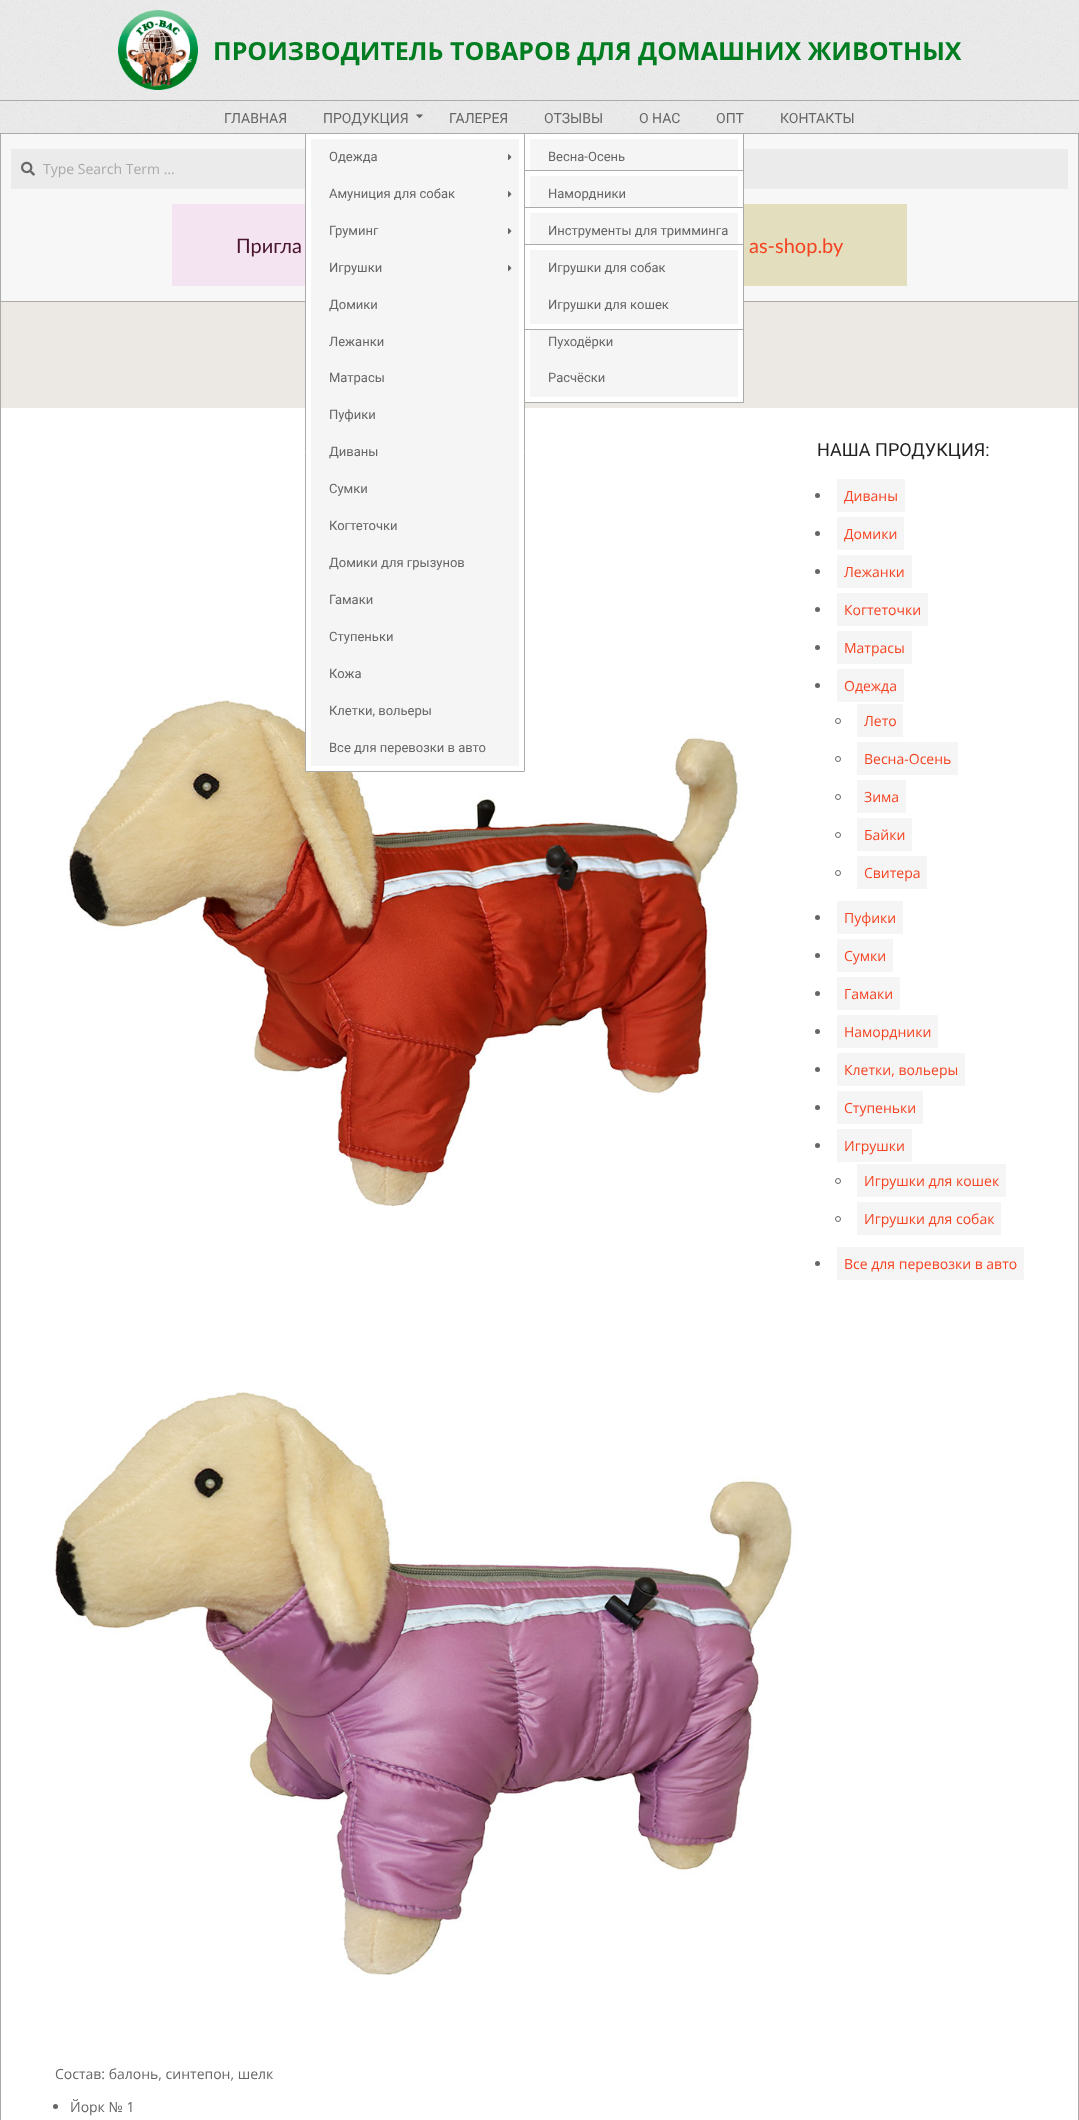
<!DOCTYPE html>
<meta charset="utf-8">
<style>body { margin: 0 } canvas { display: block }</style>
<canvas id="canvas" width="1079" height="2120"></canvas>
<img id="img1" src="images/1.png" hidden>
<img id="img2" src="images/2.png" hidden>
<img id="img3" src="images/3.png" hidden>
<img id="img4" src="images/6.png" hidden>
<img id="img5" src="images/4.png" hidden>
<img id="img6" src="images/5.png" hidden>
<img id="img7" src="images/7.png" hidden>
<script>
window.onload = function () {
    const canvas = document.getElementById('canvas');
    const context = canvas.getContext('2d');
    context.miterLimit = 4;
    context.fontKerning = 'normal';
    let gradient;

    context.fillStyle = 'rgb(232, 232, 232)';
    context.fillRect(0, 0, 1079, 2120);
    context.drawImage(document.getElementById('img1'), 1, 0, 1077, 133);
    context.fillStyle = 'rgb(170, 170, 170)';
    context.fillRect(0, 100, 1079, 1);
    context.drawImage(document.getElementById('img2'), 118, 10, 80, 80);
    context.fillRect(0, 133, 1079, 1);
    context.drawImage(document.getElementById('img3'), 416, 114, 7, 4);
    context.fillStyle = 'rgb(247, 247, 247)';
    context.fillRect(1, 134, 1077, 167);
    context.fillStyle = 'rgb(170, 170, 170)';
    context.fillRect(1078, 134, 1, 1986);
    context.fillRect(0, 301, 1079, 1);
    context.fillStyle = 'rgb(235, 235, 235)';
    context.fillRect(11, 149, 1057, 40);
    gradient = context.createLinearGradient(335, 41, 744, 449);
    gradient.addColorStop(0.5, 'rgb(244, 227, 240)');
    gradient.addColorStop(0.5, 'rgb(226, 222, 190)');
    context.fillStyle = gradient;
    context.fillRect(172, 204, 735, 82);
    context.fillStyle = 'rgb(255, 255, 255)';
    context.fillRect(1, 408, 1077, 1712);
    context.fillStyle = 'rgb(236, 233, 229)';
    context.fillRect(1, 302, 1077, 106);
    context.drawImage(document.getElementById('img4'), 67, 697, 674, 510);
    context.fillStyle = 'rgb(255, 255, 255)';
    context.beginPath();
    context.rect(305.5, 133.5, 219, 638);
    context.fill();
    context.strokeStyle = 'rgb(170, 170, 170)';
    context.stroke();
    context.fillStyle = 'rgb(245, 245, 245)';
    context.fillRect(311, 139, 208, 627);
    context.drawImage(document.getElementById('img5'), 508, 154, 4, 6);
    context.fillStyle = 'rgb(255, 255, 255)';
    context.fillRect(525, 134, 218, 36);
    context.strokeRect(524.5, 133.5, 219, 196);
    context.fillStyle = 'rgb(245, 245, 245)';
    context.fillRect(530, 139, 208, 31);
    context.drawImage(document.getElementById('img5'), 508, 191, 4, 6);
    context.fillStyle = 'rgb(255, 255, 255)';
    context.fillRect(525, 171, 218, 36);
    context.strokeRect(524.5, 170.5, 219, 159);
    context.fillStyle = 'rgb(245, 245, 245)';
    context.fillRect(530, 176, 208, 31);
    context.drawImage(document.getElementById('img5'), 508, 228, 4, 6);
    context.fillStyle = 'rgb(255, 255, 255)';
    context.beginPath();
    context.rect(524.5, 207.5, 219, 195);
    context.fill();
    context.stroke();
    context.fillStyle = 'rgb(245, 245, 245)';
    context.fillRect(530, 213, 208, 31);
    context.fillRect(530, 330, 208, 67);
    context.drawImage(document.getElementById('img5'), 508, 265, 4, 6);
    context.strokeRect(524.5, 244.5, 219, 85);
    context.fillRect(530, 250, 208, 74);
    context.fillStyle = 'rgb(170, 170, 170)';
    context.fillRect(0, 134, 1, 1986);
    context.drawImage(document.getElementById('img6'), 21, 161, 14, 15);
    context.fillStyle = 'rgb(102, 102, 102)';
    context.beginPath();
    context.arc(817.5, 495.5, 2.5, 0, 2 * Math.PI);
    context.fill();
    context.fillStyle = 'rgb(245, 245, 245)';
    context.fillRect(837, 479, 68, 33);
    context.fillStyle = 'rgb(102, 102, 102)';
    context.beginPath();
    context.arc(817.5, 533.5, 2.5, 0, 2 * Math.PI);
    context.fill();
    context.fillStyle = 'rgb(245, 245, 245)';
    context.fillRect(837, 517, 67, 33);
    context.fillStyle = 'rgb(102, 102, 102)';
    context.beginPath();
    context.arc(817.5, 571.5, 2.5, 0, 2 * Math.PI);
    context.fill();
    context.fillStyle = 'rgb(245, 245, 245)';
    context.fillRect(837, 555, 75, 33);
    context.fillStyle = 'rgb(102, 102, 102)';
    context.beginPath();
    context.arc(817.5, 609.5, 2.5, 0, 2 * Math.PI);
    context.fill();
    context.fillStyle = 'rgb(245, 245, 245)';
    context.fillRect(837, 593, 91, 33);
    context.fillStyle = 'rgb(102, 102, 102)';
    context.beginPath();
    context.arc(817.5, 647.5, 2.5, 0, 2 * Math.PI);
    context.fill();
    context.fillStyle = 'rgb(245, 245, 245)';
    context.fillRect(837, 631, 75, 33);
    context.fillStyle = 'rgb(102, 102, 102)';
    context.beginPath();
    context.arc(817.5, 685.5, 2.5, 0, 2 * Math.PI);
    context.fill();
    context.fillStyle = 'rgb(245, 245, 245)';
    context.fillRect(837, 669, 67, 33);
    context.beginPath();
    context.arc(838, 721, 2.5, 0, 2 * Math.PI);
    context.strokeStyle = 'rgb(102, 102, 102)';
    context.stroke();
    context.fillRect(857, 704, 46, 33);
    context.beginPath();
    context.arc(838, 759, 2.5, 0, 2 * Math.PI);
    context.stroke();
    context.fillRect(857, 742, 101, 33);
    context.beginPath();
    context.arc(838, 797, 2.5, 0, 2 * Math.PI);
    context.stroke();
    context.fillRect(857, 780, 49, 33);
    context.beginPath();
    context.arc(838, 835, 2.5, 0, 2 * Math.PI);
    context.stroke();
    context.fillRect(857, 818, 55, 33);
    context.beginPath();
    context.arc(838, 873, 2.5, 0, 2 * Math.PI);
    context.stroke();
    context.fillRect(857, 856, 70, 33);
    context.fillStyle = 'rgb(102, 102, 102)';
    context.beginPath();
    context.arc(817.5, 917.5, 2.5, 0, 2 * Math.PI);
    context.fill();
    context.fillStyle = 'rgb(245, 245, 245)';
    context.fillRect(837, 901, 66, 33);
    context.fillStyle = 'rgb(102, 102, 102)';
    context.beginPath();
    context.arc(817.5, 955.5, 2.5, 0, 2 * Math.PI);
    context.fill();
    context.fillStyle = 'rgb(245, 245, 245)';
    context.fillRect(837, 939, 56, 33);
    context.fillStyle = 'rgb(102, 102, 102)';
    context.beginPath();
    context.arc(817.5, 993.5, 2.5, 0, 2 * Math.PI);
    context.fill();
    context.fillStyle = 'rgb(245, 245, 245)';
    context.fillRect(837, 977, 63, 33);
    context.fillStyle = 'rgb(102, 102, 102)';
    context.beginPath();
    context.arc(817.5, 1031.5, 2.5, 0, 2 * Math.PI);
    context.fill();
    context.fillStyle = 'rgb(245, 245, 245)';
    context.fillRect(837, 1015, 101, 33);
    context.fillStyle = 'rgb(102, 102, 102)';
    context.beginPath();
    context.arc(817.5, 1069.5, 2.5, 0, 2 * Math.PI);
    context.fill();
    context.fillStyle = 'rgb(245, 245, 245)';
    context.fillRect(837, 1053, 128, 33);
    context.fillStyle = 'rgb(102, 102, 102)';
    context.beginPath();
    context.arc(817.5, 1107.5, 2.5, 0, 2 * Math.PI);
    context.fill();
    context.fillStyle = 'rgb(245, 245, 245)';
    context.fillRect(837, 1091, 86, 33);
    context.fillStyle = 'rgb(102, 102, 102)';
    context.beginPath();
    context.arc(817.5, 1145.5, 2.5, 0, 2 * Math.PI);
    context.fill();
    context.fillStyle = 'rgb(245, 245, 245)';
    context.fillRect(837, 1129, 75, 33);
    context.beginPath();
    context.arc(838, 1181, 2.5, 0, 2 * Math.PI);
    context.stroke();
    context.fillRect(857, 1164, 149, 33);
    context.beginPath();
    context.arc(838, 1219, 2.5, 0, 2 * Math.PI);
    context.stroke();
    context.fillRect(857, 1202, 144, 33);
    context.fillStyle = 'rgb(102, 102, 102)';
    context.beginPath();
    context.arc(817.5, 1263.5, 2.5, 0, 2 * Math.PI);
    context.fill();
    context.fillStyle = 'rgb(245, 245, 245)';
    context.fillRect(837, 1247, 187, 33);
    context.drawImage(document.getElementById('img7'), 55, 1392, 741, 585);
    context.fillStyle = 'rgb(102, 102, 102)';
    context.beginPath();
    context.arc(55.5, 2106.5, 2.5, 0, 2 * Math.PI);
    context.fill();
    context.font = 'bold 25px Open Sans';
    context.fillStyle = 'rgb(0, 125, 33)';
    context.fillText('ПРОИЗВОДИТЕЛЬ ТОВАРОВ ДЛЯ ДОМАШНИХ ЖИВОТНЫХ', 213, 60);
    context.font = '14px Roboto';
    context.fillStyle = 'rgb(102, 102, 102)';
    context.fillText('ПРОДУКЦИЯ', 323, 123);
    context.font = '13px Roboto';
    context.fillText('Одежда', 329, 161);
    context.fillText('Весна-Осень', 548, 161);
    context.fillText('Амуниция для собак', 329, 198);
    context.fillText('Намордники', 548, 198);
    context.fillText('Груминг', 329, 235);
    context.fillText('Инструменты для тримминга', 548, 235);
    context.fillText('Пуходёрки', 548, 346);
    context.fillText('Расчёски', 548, 382);
    context.fillText('Игрушки', 329, 272);
    context.fillText('Игрушки для собак', 548, 272);
    context.fillText('Игрушки для кошек', 548, 309);
    context.fillText('Домики', 329, 309);
    context.fillText('Лежанки', 329, 346);
    context.fillText('Матрасы', 329, 382);
    context.fillText('Пуфики', 329, 419);
    context.fillText('Диваны', 329, 456);
    context.fillText('Сумки', 329, 493);
    context.fillText('Когтеточки', 329, 530);
    context.fillText('Домики для грызунов', 329, 567);
    context.fillText('Гамаки', 329, 604);
    context.fillText('Ступеньки', 329, 641);
    context.fillText('Кожа', 329, 678);
    context.fillText('Клетки, вольеры', 329, 715);
    context.fillText('Все для перевозки в авто', 329, 752);
    context.font = '14px Roboto';
    context.fillText('ГЛАВНАЯ', 224, 123);
    context.fillText('ГАЛЕРЕЯ', 449, 123);
    context.fillText('ОТЗЫВЫ', 544, 123);
    context.fillText('О НАС', 639, 123);
    context.fillText('ОПТ', 716, 123);
    context.fillText('КОНТАКТЫ', 780, 123);
    context.font = '14px Open Sans';
    context.fillStyle = 'rgb(169, 169, 169)';
    context.fillText('Type Search Term …', 43, 174);
    context.font = '20px Lato';
    context.fillStyle = 'rgb(73, 21, 44)';
    context.fillText('Пригла', 236, 253);
    context.fillStyle = 'rgb(245, 68, 35)';
    context.fillText('as-shop.by', 749, 253);
    context.font = '18px Roboto';
    context.fillStyle = 'rgb(34, 34, 34)';
    context.fillText('НАША ПРОДУКЦИЯ:', 817, 456);
    context.font = '14px Open Sans';
    context.fillStyle = 'rgb(245, 68, 35)';
    context.fillText('Диваны', 844, 501);
    context.fillText('Домики', 844, 539);
    context.fillText('Лежанки', 844, 577);
    context.fillText('Когтеточки', 844, 615);
    context.fillText('Матрасы', 844, 653);
    context.fillText('Одежда', 844, 691);
    context.fillText('Лето', 864, 726);
    context.fillText('Весна-Осень', 864, 764);
    context.fillText('Зима', 864, 802);
    context.fillText('Байки', 864, 840);
    context.fillText('Свитера', 864, 878);
    context.fillText('Пуфики', 844, 923);
    context.fillText('Сумки', 844, 961);
    context.fillText('Гамаки', 844, 999);
    context.fillText('Намордники', 844, 1037);
    context.fillText('Клетки, вольеры', 844, 1075);
    context.fillText('Ступеньки', 844, 1113);
    context.fillText('Игрушки', 844, 1151);
    context.fillText('Игрушки для кошек', 864, 1186);
    context.fillText('Игрушки для собак', 864, 1224);
    context.fillText('Все для перевозки в авто', 844, 1269);
    context.fillStyle = 'rgb(102, 102, 102)';
    context.fillText('Состав: балонь, синтепон, шелк', 55, 2079);
    context.fillText('Йорк № 1', 70, 2112);
};
</script>
